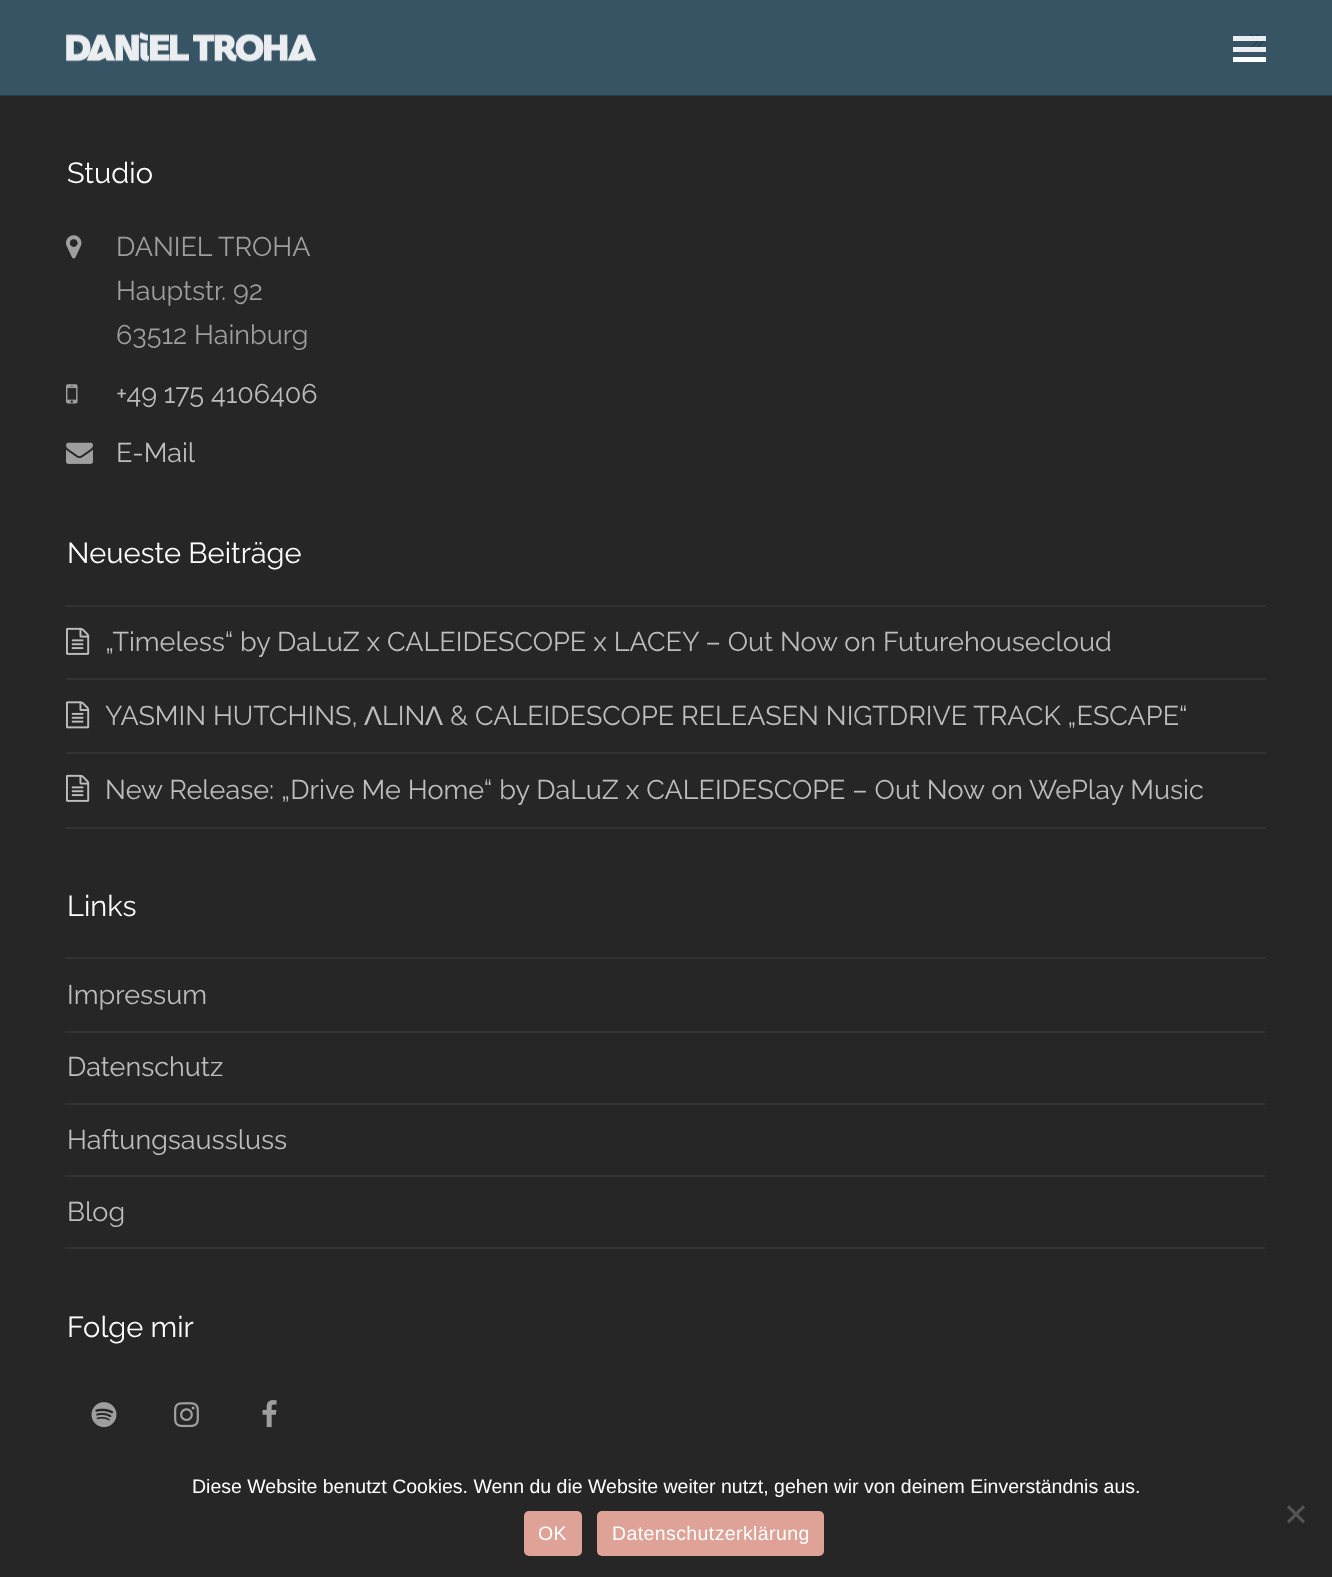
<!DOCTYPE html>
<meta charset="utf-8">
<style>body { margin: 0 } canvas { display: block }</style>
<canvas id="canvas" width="1332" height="1577"></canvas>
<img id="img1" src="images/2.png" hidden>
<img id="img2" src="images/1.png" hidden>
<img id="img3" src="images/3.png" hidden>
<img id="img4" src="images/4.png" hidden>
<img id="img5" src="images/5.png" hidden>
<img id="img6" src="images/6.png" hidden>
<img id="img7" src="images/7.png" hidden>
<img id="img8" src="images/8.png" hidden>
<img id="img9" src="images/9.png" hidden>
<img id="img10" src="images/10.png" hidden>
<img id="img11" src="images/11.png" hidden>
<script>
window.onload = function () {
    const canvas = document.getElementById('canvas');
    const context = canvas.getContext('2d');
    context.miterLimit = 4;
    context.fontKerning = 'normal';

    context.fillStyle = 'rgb(55, 84, 100)';
    context.fillRect(0, 0, 1332, 1577);
    context.drawImage(document.getElementById('img1'), 66, 35, 15, 16);
    context.drawImage(document.getElementById('img2'), 66, 31, 251, 31);
    context.drawImage(document.getElementById('img3'), 1250, 33, 15, 16);
    context.fillStyle = 'rgba(255, 255, 255, 0.9)';
    context.fillRect(1233, 47, 33, 5);
    context.fillRect(1233, 36, 33, 5);
    context.fillStyle = 'rgb(255, 255, 255)';
    context.fillRect(1233, 57, 33, 5);
    context.fillStyle = 'rgb(38, 38, 38)';
    context.fillRect(0, 96, 1332, 1481);
    context.fillStyle = 'rgb(34, 62, 79)';
    context.fillRect(0, 95, 1332, 1);
    context.drawImage(document.getElementById('img4'), 66, 235, 16, 24);
    context.drawImage(document.getElementById('img5'), 66, 384, 12, 20);
    context.drawImage(document.getElementById('img6'), 66, 442, 27, 22);
    context.fillStyle = 'rgb(51, 51, 51)';
    context.fillRect(66, 605, 1200, 2);
    context.fillRect(66, 678, 1200, 2);
    context.drawImage(document.getElementById('img7'), 66, 627, 24, 28);
    context.fillRect(66, 752, 1200, 2);
    context.drawImage(document.getElementById('img8'), 66, 701, 24, 28);
    context.fillRect(66, 827, 1200, 2);
    context.drawImage(document.getElementById('img7'), 66, 774, 24, 28);
    context.fillRect(66, 957, 1200, 2);
    context.fillRect(66, 1031, 1200, 2);
    context.fillRect(66, 1103, 1200, 2);
    context.fillRect(66, 1175, 1200, 2);
    context.fillRect(66, 1247, 1200, 2);
    context.drawImage(document.getElementById('img9'), 91, 1402, 26, 26);
    context.drawImage(document.getElementById('img10'), 174, 1402, 25, 26);
    context.drawImage(document.getElementById('img11'), 262, 1400, 15, 28);
    context.fillStyle = 'rgb(83, 83, 83)';
    context.beginPath();
    context.moveTo(1303, 1505);
    context.lineTo(1305, 1507.5);
    context.lineTo(1289, 1523.5);
    context.lineTo(1287, 1521);
    context.closePath();
    context.fill();
    context.beginPath();
    context.moveTo(1287, 1507.5);
    context.lineTo(1289, 1505);
    context.lineTo(1305, 1521);
    context.lineTo(1303, 1523.5);
    context.closePath();
    context.fill();
    context.fillStyle = 'rgb(222, 162, 151)';
    context.beginPath();
    context.roundRect(524, 1511, 58, 45, 5);
    context.fill();
    context.beginPath();
    context.roundRect(597, 1511, 227, 45, 5);
    context.fill();
    context.font = '29px Raleway';
    context.fillStyle = 'rgb(255, 255, 255)';
    context.fillText('Studio', 67, 183);
    context.font = '27px Raleway';
    context.fillStyle = 'rgb(158, 158, 158)';
    context.fillText('DANIEL TROHA', 116, 256);
    context.fillText('Hauptstr. 92', 116, 300);
    context.fillText('63512 Hainburg', 116, 344);
    context.fillStyle = 'rgb(189, 189, 189)';
    context.fillText('+49 175 4106406', 116, 403);
    context.fillText('E-Mail', 116, 462);
    context.font = '29px Raleway';
    context.fillStyle = 'rgb(255, 255, 255)';
    context.fillText('Neueste Beiträge', 67, 563);
    context.font = '27px Raleway';
    context.fillStyle = 'rgb(189, 189, 189)';
    context.fillText('„Timeless“ by DaLuZ x CALEIDESCOPE x LACEY – Out Now on Futurehousecloud', 105, 651);
    context.fillText('YASMIN HUTCHINS,', 105, 725);
    context.font = '27px Liberation Sans';
    context.fillText('Λ', 364, 725);
    context.font = '27px Raleway';
    context.fillText('LIN', 382, 725);
    context.font = '27px Liberation Sans';
    context.fillText('Λ', 425, 725);
    context.font = '27px Raleway';
    context.fillText('& CALEIDESCOPE RELEASEN NIGTDRIVE TRACK „ESCAPE“', 450, 725);
    context.fillText('New Release: „Drive Me Home“ by DaLuZ x CALEIDESCOPE – Out Now on WePlay Music', 105, 799);
    context.font = '29px Raleway';
    context.fillStyle = 'rgb(255, 255, 255)';
    context.fillText('Links', 67, 916);
    context.font = '27px Raleway';
    context.fillStyle = 'rgb(189, 189, 189)';
    context.fillText('Impressum', 67, 1004);
    context.fillText('Datenschutz', 67, 1076);
    context.fillText('Haftungsaussluss', 67, 1149);
    context.fillText('Blog', 67, 1221);
    context.font = '29px Raleway';
    context.fillStyle = 'rgb(255, 255, 255)';
    context.fillText('Folge mir', 67, 1337);
    context.font = '19.5px Liberation Sans';
    context.fillText('Diese Website benutzt Cookies. Wenn du die Website weiter nutzt, gehen wir von deinem Einverständnis aus.', 192, 1493);
    context.letterSpacing = '0.4px';
    context.fillText('OK', 538, 1540);
    context.fillText('Datenschutzerklärung', 612, 1540);
};
</script>
